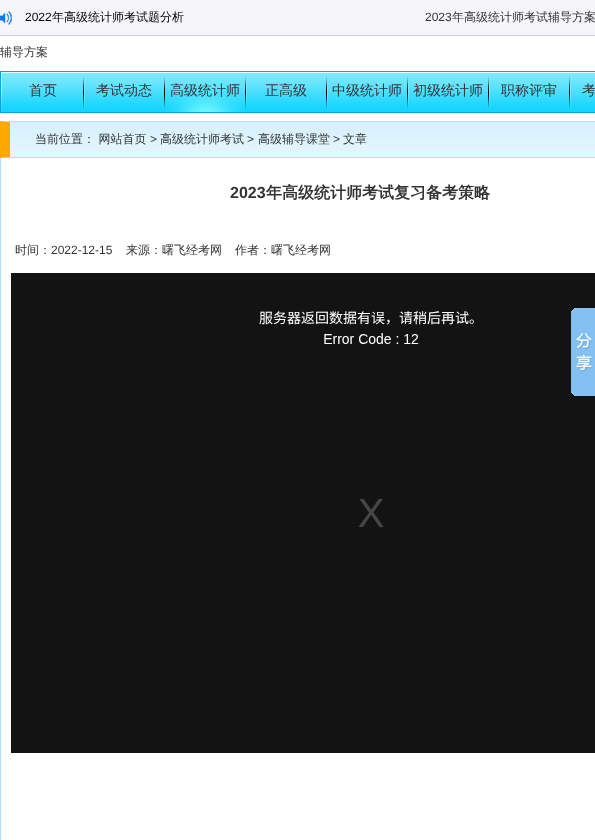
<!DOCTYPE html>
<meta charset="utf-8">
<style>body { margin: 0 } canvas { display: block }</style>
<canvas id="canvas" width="595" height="840"></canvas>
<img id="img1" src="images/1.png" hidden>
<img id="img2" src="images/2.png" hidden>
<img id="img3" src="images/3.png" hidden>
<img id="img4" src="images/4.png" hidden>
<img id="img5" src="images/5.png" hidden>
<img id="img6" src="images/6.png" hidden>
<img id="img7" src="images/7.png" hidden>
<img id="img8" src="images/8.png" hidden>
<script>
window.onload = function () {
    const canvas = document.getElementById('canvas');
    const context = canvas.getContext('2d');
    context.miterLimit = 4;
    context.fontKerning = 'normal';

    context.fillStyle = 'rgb(255, 255, 255)';
    context.fillRect(0, 0, 595, 840);
    context.fillStyle = 'rgb(246, 245, 250)';
    context.fillRect(0, 0, 595, 35);
    context.fillStyle = 'rgb(204, 204, 204)';
    context.fillRect(0, 35, 595, 1);
    context.drawImage(document.getElementById('img1'), 0, 11, 12, 14);
    context.drawImage(document.getElementById('img2'), 1, 72, 594, 40);
    context.strokeStyle = 'rgb(14, 161, 228)';
    context.strokeRect(0.5, 71.5, 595, 41);
    context.drawImage(document.getElementById('img3'), 2, 73, 593, 38);
    context.drawImage(document.getElementById('img4'), 83, 76, 2, 33);
    context.drawImage(document.getElementById('img4'), 164, 76, 2, 33);
    context.drawImage(document.getElementById('img5'), 165, 79, 80, 33);
    context.drawImage(document.getElementById('img4'), 245, 76, 2, 33);
    context.drawImage(document.getElementById('img4'), 326, 76, 2, 33);
    context.drawImage(document.getElementById('img4'), 407, 76, 2, 33);
    context.drawImage(document.getElementById('img4'), 488, 76, 2, 33);
    context.drawImage(document.getElementById('img4'), 569, 76, 2, 33);
    context.drawImage(document.getElementById('img6'), 10, 122, 585, 35);
    context.fillStyle = 'rgb(169, 229, 248)';
    context.beginPath();
    context.moveTo(0, 121);
    context.lineTo(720, 121);
    context.lineTo(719, 122);
    context.lineTo(10, 122);
    context.closePath();
    context.fill();
    context.beginPath();
    context.moveTo(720, 158);
    context.lineTo(0, 158);
    context.lineTo(10, 157);
    context.lineTo(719, 157);
    context.closePath();
    context.fill();
    context.fillStyle = 'rgb(255, 168, 0)';
    context.beginPath();
    context.moveTo(0, 158);
    context.lineTo(0, 121);
    context.lineTo(10, 122);
    context.lineTo(10, 157);
    context.closePath();
    context.fill();
    context.fillStyle = 'rgb(169, 229, 248)';
    context.fillRect(0, 158, 1, 682);
    context.drawImage(document.getElementById('img7'), 11, 273, 584, 480);
    context.drawImage(document.getElementById('img8'), 571, 308, 24, 88);
    context.font = '12px Liberation Sans';
    context.fillStyle = 'rgb(0, 0, 0)';
    context.fillText('2022', 25, 21);
    context.font = '500 12px WenQuanYi Zen Hei';
    context.fillText('年高级统计师考试题分析', 52, 21);
    context.font = '12px Liberation Sans';
    context.fillStyle = 'rgb(51, 51, 51)';
    context.fillText('2023', 425, 21);
    context.font = '500 12px WenQuanYi Zen Hei';
    context.fillText('年高级统计师考试辅导方案', 452, 21);
    context.fillText('辅导方案', 0, 56);
    context.font = '500 14px WenQuanYi Zen Hei';
    context.fillText('首页', 29, 95);
    context.fillText('考试动态', 96, 95);
    context.fillText('高级统计师', 170, 95);
    context.fillText('正高级', 265, 95);
    context.fillText('中级统计师', 332, 95);
    context.fillText('初级统计师', 413, 95);
    context.fillText('职称评审', 501, 95);
    context.fillText('考', 582, 95);
    context.font = '500 12px WenQuanYi Zen Hei';
    context.fillText('当前位置： 网站首页', 35, 143);
    context.font = '12px Liberation Sans';
    context.fillText('>', 150, 143);
    context.font = '500 12px WenQuanYi Zen Hei';
    context.fillText('高级统计师考试', 160, 143);
    context.font = '12px Liberation Sans';
    context.fillText('>', 247, 143);
    context.font = '500 12px WenQuanYi Zen Hei';
    context.fillText('高级辅导课堂', 258, 143);
    context.font = '12px Liberation Sans';
    context.fillText('>', 333, 143);
    context.font = '500 12px WenQuanYi Zen Hei';
    context.fillText('文章', 343, 143);
    context.font = 'bold 16px Liberation Sans';
    context.fillText('2023', 230, 198);
    context.font = 'bold 16px WenQuanYi Zen Hei';
    context.fillText('年高级统计师考试复习备考策略', 266, 198);
    context.font = '500 12px WenQuanYi Zen Hei';
    context.fillText('时间：', 15, 254);
    context.font = '12px Liberation Sans';
    context.fillText('2022-12-15', 51, 254);
    context.font = '500 12px WenQuanYi Zen Hei';
    context.fillText('来源：曙飞经考网', 126, 254);
    context.fillText('作者：曙飞经考网', 235, 254);
};
</script>
